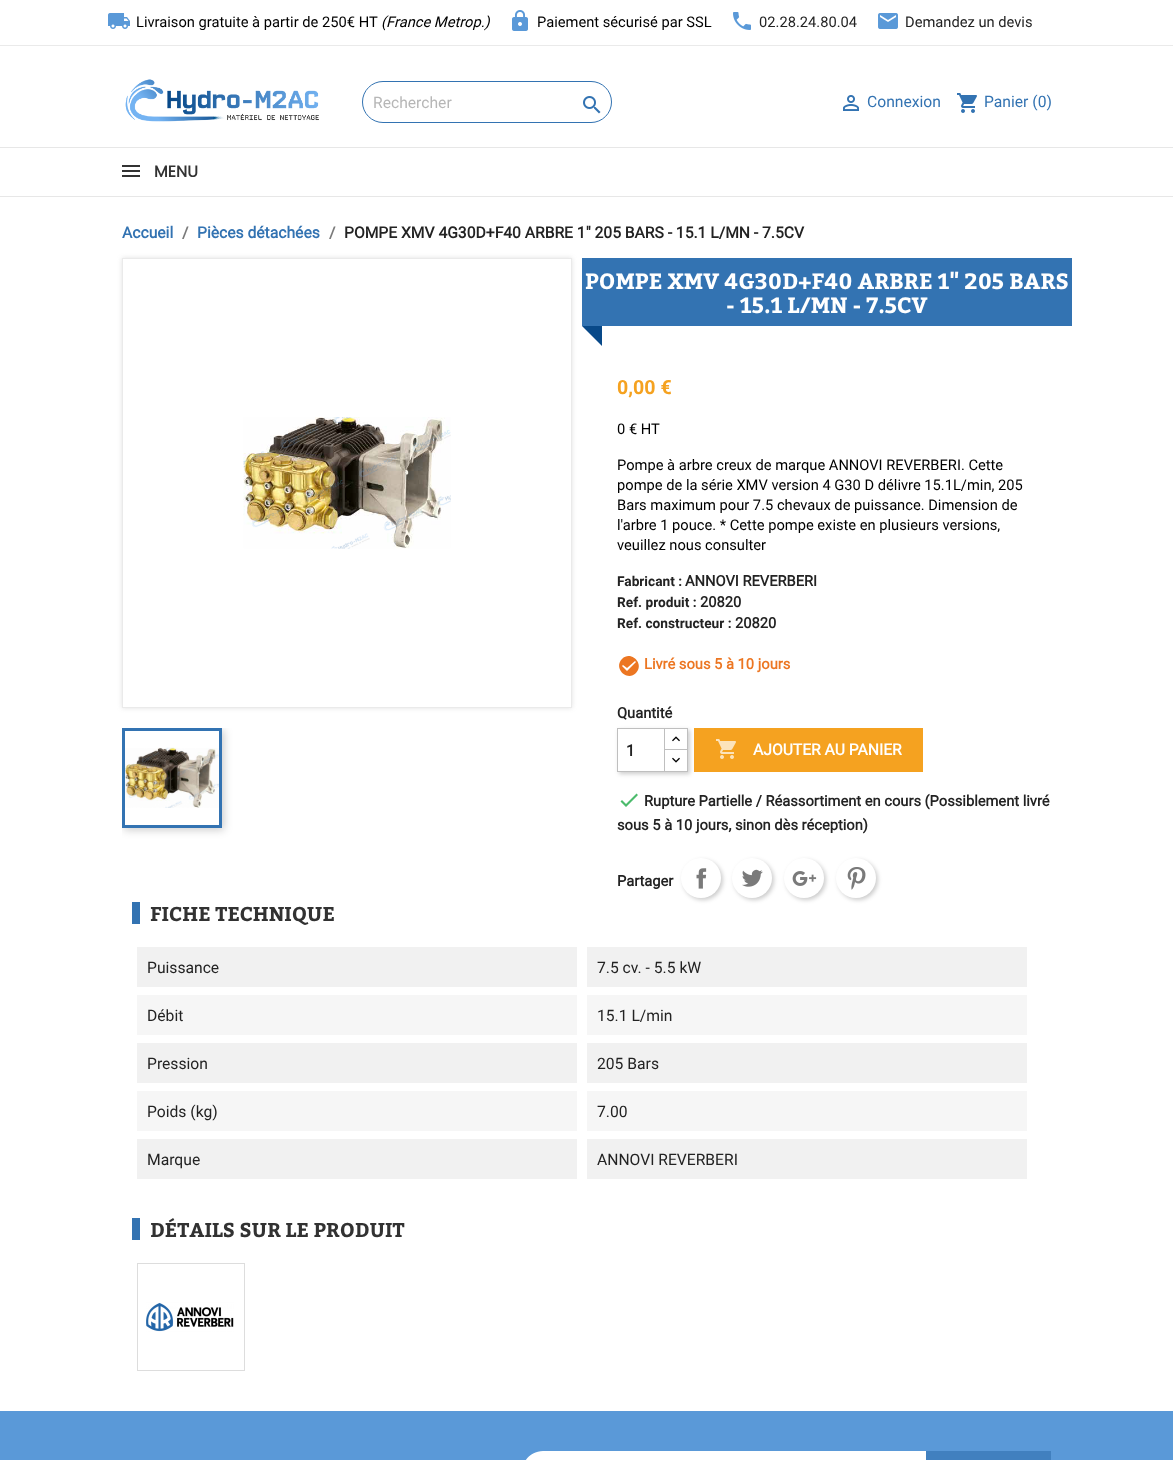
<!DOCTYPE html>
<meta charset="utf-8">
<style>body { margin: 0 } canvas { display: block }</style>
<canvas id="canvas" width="1173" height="1460"></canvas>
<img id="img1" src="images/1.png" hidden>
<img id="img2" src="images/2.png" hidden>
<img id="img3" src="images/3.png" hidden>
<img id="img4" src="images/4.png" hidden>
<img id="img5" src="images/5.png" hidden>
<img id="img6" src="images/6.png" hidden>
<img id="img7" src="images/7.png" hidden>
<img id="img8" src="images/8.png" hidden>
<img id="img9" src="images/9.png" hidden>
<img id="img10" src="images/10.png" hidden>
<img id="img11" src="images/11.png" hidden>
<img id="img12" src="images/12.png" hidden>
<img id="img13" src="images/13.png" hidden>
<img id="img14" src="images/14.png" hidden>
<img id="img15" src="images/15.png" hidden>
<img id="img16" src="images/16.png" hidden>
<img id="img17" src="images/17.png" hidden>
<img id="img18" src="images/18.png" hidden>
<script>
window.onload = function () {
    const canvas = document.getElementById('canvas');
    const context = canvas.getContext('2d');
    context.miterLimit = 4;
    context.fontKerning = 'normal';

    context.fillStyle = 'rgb(255, 255, 255)';
    context.fillRect(0, 0, 1173, 1460);
    context.fillStyle = 'rgb(234, 234, 234)';
    context.fillRect(0, 45, 1173, 1);
    context.drawImage(document.getElementById('img1'), 108, 13, 22, 16);
    context.drawImage(document.getElementById('img2'), 512, 10, 16, 21);
    context.drawImage(document.getElementById('img3'), 733, 12, 18, 18);
    context.drawImage(document.getElementById('img4'), 878, 13, 20, 16);
    context.drawImage(document.getElementById('img5'), 125, 79, 194, 43);
    context.beginPath();
    context.roundRect(362.5, 81.5, 249, 41, 20.5);
    context.strokeStyle = 'rgb(51, 115, 178)';
    context.stroke();
    context.drawImage(document.getElementById('img6'), 583, 96, 18, 18);
    context.drawImage(document.getElementById('img7'), 843, 95, 16, 16);
    context.drawImage(document.getElementById('img8'), 957, 93, 20, 20);
    context.fillStyle = 'rgb(231, 231, 231)';
    context.fillRect(0, 147, 1173, 1);
    context.fillRect(0, 196, 1173, 1);
    context.fillStyle = 'rgb(51, 51, 51)';
    context.fillRect(122, 165, 18, 2);
    context.fillRect(122, 170, 18, 2);
    context.fillRect(122, 175, 18, 2);
    context.save();
    context.beginPath();
    context.moveTo(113, 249);
    context.lineTo(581, 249);
    context.lineTo(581, 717);
    context.lineTo(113, 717);
    context.closePath();
    context.moveTo(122, 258);
    context.lineTo(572, 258);
    context.lineTo(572, 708);
    context.lineTo(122, 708);
    context.closePath();
    context.clip('evenodd');
    context.fillStyle = 'rgba(107, 107, 107, 0.2)';
    context.filter = 'blur(2.5px)';
    context.beginPath();
    context.rect(122, 258, 450, 450);
    context.fill();
    context.filter = 'none';
    context.restore();
    context.strokeStyle = 'rgb(234, 234, 234)';
    context.strokeRect(122.5, 258.5, 449, 449);
    context.drawImage(document.getElementById('img9'), 243, 417, 208, 132);
    context.save();
    context.beginPath();
    context.rect(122, 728, 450, 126);
    context.clip();
    context.beginPath();
    context.moveTo(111, 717);
    context.lineTo(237, 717);
    context.lineTo(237, 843);
    context.lineTo(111, 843);
    context.closePath();
    context.moveTo(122, 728);
    context.lineTo(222, 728);
    context.lineTo(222, 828);
    context.lineTo(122, 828);
    context.closePath();
    context.clip('evenodd');
    context.fillStyle = 'rgba(0, 0, 0, 0.2)';
    context.filter = 'blur(4px)';
    context.beginPath();
    context.rect(124, 730, 100, 100);
    context.fill();
    context.filter = 'none';
    context.restore();
    context.strokeStyle = 'rgb(51, 115, 178)';
    context.lineWidth = 3;
    context.strokeRect(123.5, 729.5, 97, 97);
    context.drawImage(document.getElementById('img10'), 125, 747, 94, 61);
    context.fillStyle = 'rgb(51, 115, 178)';
    context.fillRect(582, 258, 490, 68);
    context.fillStyle = 'rgb(8, 73, 137)';
    context.beginPath();
    context.moveTo(602, 326);
    context.lineTo(602, 346);
    context.lineTo(582, 326);
    context.closePath();
    context.fill();
    context.fillStyle = 'rgb(236, 118, 34)';
    context.beginPath();
    context.moveTo(627, 671);
    context.lineTo(636, 662);
    context.lineTo(635, 661);
    context.lineTo(627, 668);
    context.lineTo(623, 665);
    context.lineTo(622, 666);
    context.closePath();
    context.moveTo(622, 659);
    context.bezierCurveTo(631, 650, 645, 664, 636, 673);
    context.bezierCurveTo(627, 682, 613, 668, 622, 659);
    context.closePath();
    context.moveTo(641, 678);
    context.closePath();
    context.moveTo(665, 678);
    context.closePath();
    context.moveTo(689, 678);
    context.closePath();
    context.moveTo(713, 678);
    context.closePath();
    context.moveTo(737, 678);
    context.closePath();
    context.moveTo(761, 678);
    context.closePath();
    context.moveTo(785, 678);
    context.closePath();
    context.moveTo(809, 678);
    context.closePath();
    context.fill();
    context.fillStyle = 'rgb(245, 162, 32)';
    context.fillRect(694, 728, 229, 44);
    context.save();
    context.beginPath();
    context.moveTo(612, 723);
    context.lineTo(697, 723);
    context.lineTo(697, 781);
    context.lineTo(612, 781);
    context.closePath();
    context.moveTo(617, 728);
    context.lineTo(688, 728);
    context.lineTo(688, 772);
    context.lineTo(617, 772);
    context.closePath();
    context.clip('evenodd');
    context.fillStyle = 'rgba(0, 0, 0, 0.2)';
    context.filter = 'blur(2px)';
    context.beginPath();
    context.rect(619, 730, 71, 44);
    context.fill();
    context.filter = 'none';
    context.restore();
    context.strokeStyle = 'rgb(191, 191, 191)';
    context.lineWidth = 1;
    context.strokeRect(664.5, 728.5, 23, 22);
    context.fillStyle = 'rgb(255, 255, 255)';
    context.fillRect(665, 750, 22, 1);
    context.strokeRect(664.5, 749.5, 23, 22);
    context.strokeRect(617.5, 728.5, 47, 43);
    context.drawImage(document.getElementById('img11'), 672, 736, 8, 6);
    context.drawImage(document.getElementById('img12'), 672, 757, 8, 6);
    context.drawImage(document.getElementById('img13'), 716, 739, 20, 20);
    context.fillStyle = 'rgb(76, 187, 108)';
    context.beginPath();
    context.moveTo(626, 804);
    context.lineTo(636.5, 793.5);
    context.lineTo(638, 795);
    context.lineTo(626, 807);
    context.lineTo(620.5, 801.5);
    context.lineTo(622, 800);
    context.closePath();
    context.fill();
    context.fillStyle = 'rgba(0, 0, 0, 0.2)';
    context.filter = 'blur(2px)';
    context.beginPath();
    context.roundRect(683, 860, 40, 40, 20);
    context.fill();
    context.filter = 'none';
    context.fillStyle = 'rgb(255, 255, 255)';
    context.beginPath();
    context.arc(701, 878, 20, 0, 2 * Math.PI);
    context.fill();
    context.drawImage(document.getElementById('img14'), 696, 868, 11, 21);
    context.fillStyle = 'rgba(0, 0, 0, 0.2)';
    context.filter = 'blur(2px)';
    context.beginPath();
    context.roundRect(734, 860, 40, 40, 20);
    context.fill();
    context.filter = 'none';
    context.fillStyle = 'rgb(255, 255, 255)';
    context.beginPath();
    context.arc(752, 878, 20, 0, 2 * Math.PI);
    context.fill();
    context.drawImage(document.getElementById('img15'), 742, 869, 21, 18);
    context.fillStyle = 'rgba(0, 0, 0, 0.2)';
    context.filter = 'blur(2px)';
    context.beginPath();
    context.roundRect(786, 860, 40, 40, 20);
    context.fill();
    context.filter = 'none';
    context.fillStyle = 'rgb(255, 255, 255)';
    context.beginPath();
    context.arc(804, 878, 20, 0, 2 * Math.PI);
    context.fill();
    context.drawImage(document.getElementById('img16'), 792, 871, 25, 15);
    context.fillStyle = 'rgba(0, 0, 0, 0.2)';
    context.filter = 'blur(2px)';
    context.beginPath();
    context.roundRect(838, 860, 40, 40, 20);
    context.fill();
    context.filter = 'none';
    context.fillStyle = 'rgb(255, 255, 255)';
    context.beginPath();
    context.arc(856, 878, 20, 0, 2 * Math.PI);
    context.fill();
    context.drawImage(document.getElementById('img17'), 847, 867, 19, 23);
    context.fillStyle = 'rgb(51, 115, 178)';
    context.fillRect(132, 902, 8, 22);
    context.fillStyle = 'rgb(241, 241, 241)';
    context.fillRect(137, 947, 440, 40);
    context.fillRect(587, 947, 440, 40);
    context.fillStyle = 'rgb(246, 246, 246)';
    context.fillRect(137, 995, 440, 40);
    context.fillRect(587, 995, 440, 40);
    context.fillStyle = 'rgb(241, 241, 241)';
    context.fillRect(137, 1043, 440, 40);
    context.fillRect(587, 1043, 440, 40);
    context.fillStyle = 'rgb(246, 246, 246)';
    context.fillRect(137, 1091, 440, 40);
    context.fillRect(587, 1091, 440, 40);
    context.fillStyle = 'rgb(241, 241, 241)';
    context.fillRect(137, 1139, 440, 40);
    context.fillRect(587, 1139, 440, 40);
    context.fillStyle = 'rgb(51, 115, 178)';
    context.fillRect(132, 1218, 8, 22);
    context.strokeStyle = 'rgb(221, 221, 221)';
    context.strokeRect(137.5, 1263.5, 107, 107);
    context.drawImage(document.getElementById('img18'), 146, 1302, 88, 30);
    context.fillStyle = 'rgb(90, 153, 216)';
    context.fillRect(0, 1411, 1173, 49);
    context.fillStyle = 'rgb(255, 255, 255)';
    context.beginPath();
    context.moveTo(543, 1451);
    context.lineTo(926, 1451);
    context.lineTo(926, 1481);
    context.lineTo(543, 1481);
    context.bezierCurveTo(531.5, 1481, 522, 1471.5, 522, 1460);
    context.lineTo(522, 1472);
    context.bezierCurveTo(522, 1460.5, 531.5, 1451, 543, 1451);
    context.closePath();
    context.fill();
    context.fillStyle = 'rgb(65, 128, 191)';
    context.fillRect(926, 1451, 125, 9);
    context.font = '15px Roboto';
    context.fillStyle = 'rgb(0, 0, 0)';
    context.fillText('Livraison gratuite à partir de 250€ HT', 136, 27);
    context.font = 'italic 15px Roboto';
    context.fillText('(France Metrop.)', 381, 27);
    context.font = '15px Roboto';
    context.fillText('Paiement sécurisé par SSL', 537, 27);
    context.fillStyle = 'rgb(35, 35, 35)';
    context.fillText('02.28.24.80.04', 759, 27);
    context.fillText('Demandez un devis', 905, 27);
    context.font = '16px Roboto';
    context.fillStyle = 'rgb(183, 183, 183)';
    context.fillText('Rechercher', 373, 108);
    context.fillStyle = 'rgb(51, 115, 178)';
    context.fillText('Connexion', 867, 107);
    context.fillText('Panier (0)', 984, 107);
    context.font = 'bold 16px Poppins';
    context.fillStyle = 'rgb(50, 50, 50)';
    context.fillText('MENU', 154, 177);
    context.font = 'bold 16px Roboto';
    context.fillStyle = 'rgb(51, 115, 178)';
    context.fillText('Accueil', 122, 238);
    context.fillStyle = 'rgb(122, 122, 122)';
    context.fillText('/', 182, 238);
    context.fillStyle = 'rgb(51, 115, 178)';
    context.fillText('Pièces détachées', 197, 238);
    context.fillStyle = 'rgb(122, 122, 122)';
    context.fillText('/', 329, 238);
    context.fillStyle = 'rgb(35, 35, 35)';
    context.fillText('POMPE XMV 4G30D+F40 ARBRE 1" 205 BARS - 15.1 L/MN - 7.5CV', 344, 238);
    context.font = 'bold 22px Bitter';
    context.fillStyle = 'rgb(255, 255, 255)';
    context.fillText('POMPE XMV 4G30D+F40 ARBRE 1" 205 BARS', 585, 289);
    context.fillText('- 15.1 L/MN - 7.5CV', 726, 313);
    context.font = 'bold 20px "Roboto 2"';
    context.fillStyle = 'rgb(245, 162, 32)';
    context.fillText('0,00 €', 617, 394);
    context.font = '15px Roboto';
    context.fillStyle = 'rgb(0, 0, 0)';
    context.fillText('0 € HT', 617, 434);
    context.fillText('Pompe à arbre creux de marque ANNOVI REVERBERI. Cette', 617, 470);
    context.fillText('pompe de la série XMV version 4 G30 D délivre 15.1L/min, 205', 617, 490);
    context.fillText('Bars maximum pour 7.5 chevaux de puissance. Dimension de', 617, 510);
    context.fillText('l\'arbre 1 pouce. * Cette pompe existe en plusieurs versions,', 617, 530);
    context.fillText('veuillez nous consulter', 617, 550);
    context.font = 'bold 14px "Roboto 2"';
    context.fillStyle = 'rgb(35, 35, 35)';
    context.fillText('Fabricant :', 617, 586);
    context.font = 'bold 15px Roboto';
    context.fillText('ANNOVI REVERBERI', 685, 586);
    context.font = 'bold 14px "Roboto 2"';
    context.fillText('Ref. produit :', 617, 607);
    context.font = 'bold 15px Roboto';
    context.fillText('20820', 700, 607);
    context.font = 'bold 14px "Roboto 2"';
    context.fillText('Ref. constructeur :', 617, 628);
    context.font = 'bold 15px Roboto';
    context.fillText('20820', 735, 628);
    context.fillStyle = 'rgb(236, 118, 34)';
    context.fillText('Livré sous 5 à 10 jours', 644, 669);
    context.fillStyle = 'rgb(35, 35, 35)';
    context.fillText('Quantité', 617, 718);
    context.font = 'bold 16px Roboto';
    context.fillText('1', 626, 756);
    context.fillStyle = 'rgb(255, 255, 255)';
    context.fillText('AJOUTER AU PANIER', 753, 755);
    context.font = 'bold 15px Roboto';
    context.fillStyle = 'rgb(35, 35, 35)';
    context.fillText('Rupture Partielle / Réassortiment en cours (Possiblement livré', 644, 806);
    context.fillText('sous 5 à 10 jours, sinon dès réception)', 617, 830);
    context.fillText('Partager', 617, 886);
    context.font = 'bold 20px Bitter';
    context.fillStyle = 'rgb(50, 50, 50)';
    context.fillText('FICHE TECHNIQUE', 150, 921);
    context.font = '16px Roboto';
    context.fillStyle = 'rgb(35, 35, 35)';
    context.fillText('Puissance', 147, 973);
    context.fillText('7.5 cv. - 5.5 kW', 597, 973);
    context.fillText('Débit', 147, 1021);
    context.fillText('15.1 L/min', 597, 1021);
    context.fillText('Pression', 147, 1069);
    context.fillText('205 Bars', 597, 1069);
    context.fillText('Poids (kg)', 147, 1117);
    context.fillText('7.00', 597, 1117);
    context.fillText('Marque', 147, 1165);
    context.fillText('ANNOVI REVERBERI', 597, 1165);
    context.font = 'bold 20px Bitter';
    context.fillStyle = 'rgb(50, 50, 50)';
    context.fillText('DÉTAILS SUR LE PRODUIT', 150, 1237);
};
</script>
